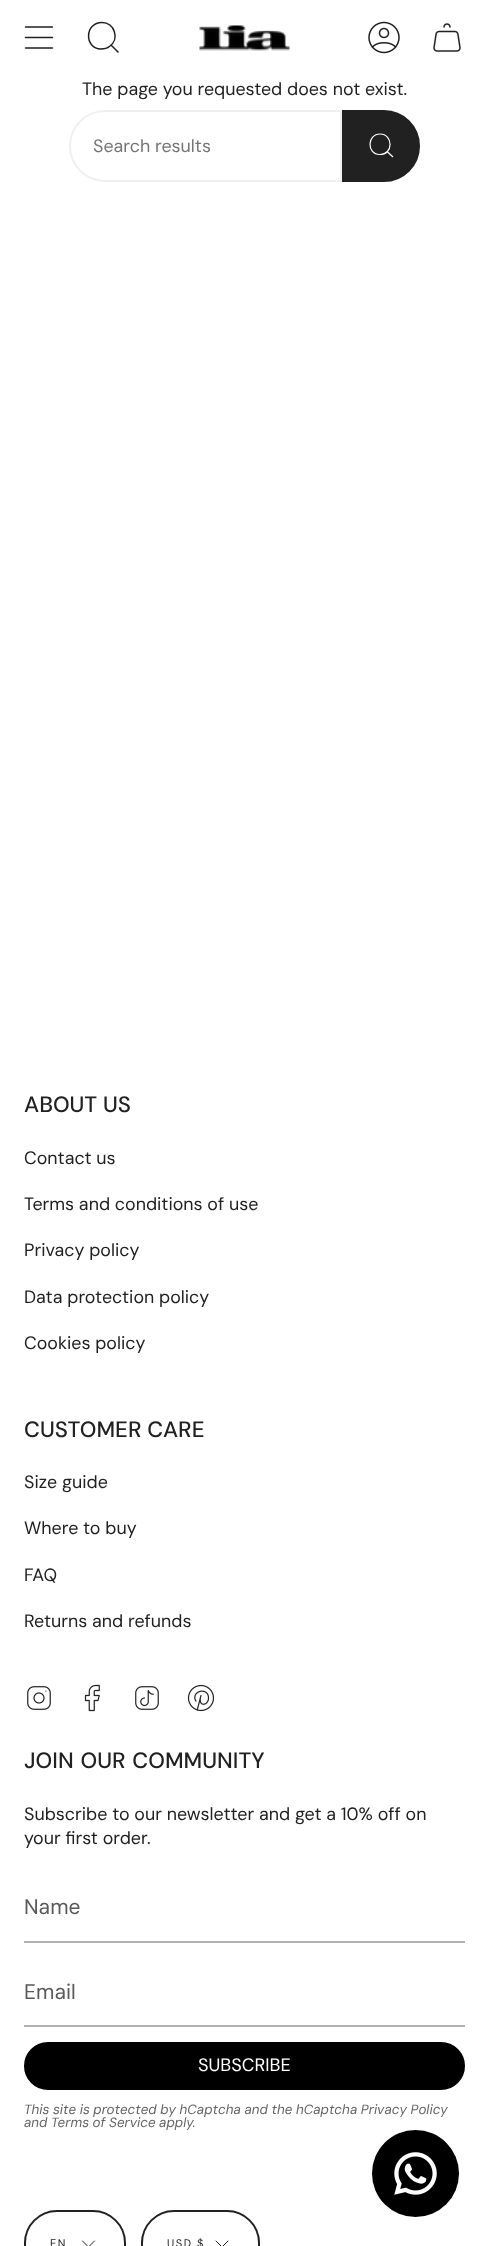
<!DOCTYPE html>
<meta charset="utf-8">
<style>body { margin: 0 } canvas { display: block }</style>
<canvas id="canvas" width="489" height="2246"></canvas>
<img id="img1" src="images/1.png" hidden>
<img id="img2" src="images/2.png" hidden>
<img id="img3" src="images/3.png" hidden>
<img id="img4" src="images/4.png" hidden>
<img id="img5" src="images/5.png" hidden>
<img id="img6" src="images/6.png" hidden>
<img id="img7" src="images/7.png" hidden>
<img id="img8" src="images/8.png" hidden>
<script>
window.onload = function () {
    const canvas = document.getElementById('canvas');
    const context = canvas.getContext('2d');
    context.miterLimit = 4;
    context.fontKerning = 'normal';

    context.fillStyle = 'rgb(255, 255, 255)';
    context.fillRect(0, 0, 489, 2246);
    context.beginPath();
    context.moveTo(25.5, 27);
    context.lineTo(52.5, 27);
    context.moveTo(25.5, 37.5);
    context.lineTo(52.5, 37.5);
    context.moveTo(25.5, 48);
    context.lineTo(52.5, 48);
    context.strokeStyle = 'rgb(33, 33, 33)';
    context.lineWidth = 1.5;
    context.lineCap = 'round';
    context.lineJoin = 'round';
    context.stroke();
    context.beginPath();
    context.moveTo(102, 22.5);
    context.bezierCurveTo(114.5, 22.5, 120, 39, 109.5, 46.5);
    context.bezierCurveTo(107, 48.5, 104, 49, 101, 49);
    context.bezierCurveTo(84, 48.5, 84.5, 22.5, 102, 22.5);
    context.closePath();
    context.moveTo(111, 45);
    context.lineTo(118.5, 52.5);
    context.lineCap = 'butt';
    context.lineJoin = 'miter';
    context.stroke();
    context.drawImage(document.getElementById('img1'), 199, 25, 91, 26);
    context.drawImage(document.getElementById('img2'), 368, 21, 32, 33);
    context.drawImage(document.getElementById('img3'), 433, 23, 28, 29);
    context.beginPath();
    context.roundRect(70, 111, 271, 70, [35, 0, 0, 35]);
    context.strokeStyle = 'rgb(240, 240, 240)';
    context.lineWidth = 2;
    context.stroke();
    context.fillStyle = 'rgb(33, 33, 33)';
    context.beginPath();
    context.roundRect(343, 111, 76, 70, [0, 35, 35, 0]);
    context.fill();
    context.strokeStyle = 'rgb(33, 33, 33)';
    context.stroke();
    context.beginPath();
    context.moveTo(380, 134);
    context.bezierCurveTo(393.5, 134, 393.5, 155, 379.5, 154.5);
    context.bezierCurveTo(366.5, 154, 367, 134, 380, 134);
    context.closePath();
    context.moveTo(387, 151.5);
    context.lineTo(393, 157);
    context.strokeStyle = 'rgb(255, 255, 255)';
    context.lineWidth = 1.2;
    context.stroke();
    context.drawImage(document.getElementById('img4'), 27, 1686, 24, 24);
    context.drawImage(document.getElementById('img5'), 84, 1684, 16, 28);
    context.drawImage(document.getElementById('img6'), 135, 1686, 24, 24);
    context.drawImage(document.getElementById('img7'), 187, 1684, 28, 28);
    context.fillStyle = 'rgb(177, 177, 177)';
    context.fillRect(24, 1941, 441, 2);
    context.fillRect(24, 2025, 441, 2);
    context.fillStyle = 'rgb(0, 0, 0)';
    context.beginPath();
    context.roundRect(25, 2043, 439, 46, 23);
    context.fill();
    context.strokeStyle = 'rgb(0, 0, 0)';
    context.lineWidth = 2;
    context.stroke();
    context.beginPath();
    context.roundRect(25, 2211, 100, 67, 32);
    context.strokeStyle = 'rgb(33, 33, 33)';
    context.stroke();
    context.beginPath();
    context.moveTo(82.5, 2241);
    context.lineTo(88.5, 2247);
    context.lineTo(94.5, 2241);
    context.lineWidth = 1;
    context.lineCap = 'round';
    context.lineJoin = 'round';
    context.stroke();
    context.beginPath();
    context.roundRect(142, 2211, 117, 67, 32);
    context.lineWidth = 2;
    context.lineJoin = 'miter';
    context.stroke();
    context.beginPath();
    context.moveTo(216, 2241);
    context.lineTo(222, 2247);
    context.lineTo(228, 2241);
    context.lineWidth = 1;
    context.lineJoin = 'round';
    context.stroke();
    context.beginPath();
    context.arc(415.5, 2173.5, 43.5, 0, 2 * Math.PI);
    context.fill();
    context.drawImage(document.getElementById('img8'), 394, 2152, 43, 43);
    context.font = '17.85px DM Sans';
    context.fillStyle = 'rgb(33, 33, 33)';
    context.fillText('The page you requested does not exist.', 82, 95);
    context.fillStyle = 'rgb(117, 117, 117)';
    context.fillText('Search results', 93, 152);
    context.font = '500 22.25px DM Sans';
    context.fillStyle = 'rgb(33, 33, 33)';
    context.fillText('ABOUT US', 24, 1112);
    context.font = '17.85px DM Sans';
    context.fillText('Contact us', 24, 1164);
    context.fillText('Terms and conditions of use', 24, 1210);
    context.fillText('Privacy policy', 24, 1256);
    context.fillText('Data protection policy', 24, 1303);
    context.fillText('Cookies policy', 24, 1349);
    context.font = '500 22.25px DM Sans';
    context.fillText('CUSTOMER CARE', 24, 1437);
    context.font = '17.85px DM Sans';
    context.fillText('Size guide', 24, 1488);
    context.fillText('Where to buy', 24, 1534);
    context.fillText('FAQ', 24, 1581);
    context.fillText('Returns and refunds', 24, 1627);
    context.wordSpacing = '1px';
    context.font = '500 22.25px DM Sans';
    context.fillText('JOIN OUR COMMUNITY', 24, 1768);
    context.wordSpacing = '0px';
    context.font = '17.85px DM Sans';
    context.fillText('Subscribe to our newsletter and get a 10% off on', 24, 1820);
    context.fillText('your first order.', 24, 1844);
    context.font = '21px "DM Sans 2"';
    context.fillStyle = 'rgb(89, 89, 89)';
    context.fillText('Name', 24, 1914);
    context.fillText('Email', 24, 1999);
    context.font = '18px "DM Sans 2"';
    context.fillStyle = 'rgb(255, 255, 255)';
    context.fillText('SUBSCRIBE', 198, 2071);
    context.font = 'italic 13.4px DM Sans';
    context.fillStyle = 'rgb(100, 100, 100)';
    context.fillText('This site is protected by hCaptcha and the hCaptcha Privacy Policy', 24, 2114);
    context.fillText('and Terms of Service apply.', 24, 2127);
    context.letterSpacing = '1.5px';
    context.font = '11px "DM Sans 2"';
    context.fillStyle = 'rgb(33, 33, 33)';
    context.fillText('EN', 50, 2247);
    context.fillText('USD $', 167, 2247);
};
</script>
